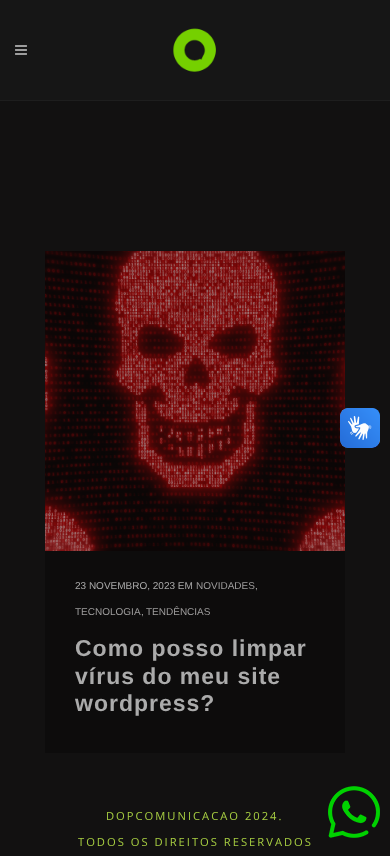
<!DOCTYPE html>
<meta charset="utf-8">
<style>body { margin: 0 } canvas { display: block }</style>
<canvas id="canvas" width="390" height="856"></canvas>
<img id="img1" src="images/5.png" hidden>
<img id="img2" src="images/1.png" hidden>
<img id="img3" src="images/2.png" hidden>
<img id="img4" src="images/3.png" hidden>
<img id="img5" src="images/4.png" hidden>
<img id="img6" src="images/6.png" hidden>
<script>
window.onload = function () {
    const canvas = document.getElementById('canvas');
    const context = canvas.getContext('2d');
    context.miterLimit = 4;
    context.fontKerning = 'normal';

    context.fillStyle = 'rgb(18, 17, 17)';
    context.fillRect(0, 0, 390, 856);
    context.drawImage(document.getElementById('img1'), 45, 251, 300, 300);
    context.drawImage(document.getElementById('img2'), 340, 408, 40, 40);
    context.drawImage(document.getElementById('img3'), 340, 408, 40, 40);
    context.fillStyle = 'rgb(22, 22, 22)';
    context.fillRect(0, 0, 390, 100);
    context.fillStyle = 'rgb(30, 30, 30)';
    context.fillRect(0, 100, 390, 1);
    context.drawImage(document.getElementById('img4'), 15, 45, 12, 10);
    context.drawImage(document.getElementById('img5'), 173, 28, 43, 44);
    context.fillStyle = 'rgb(13, 12, 12)';
    context.fillRect(45, 551, 300, 202);
    context.drawImage(document.getElementById('img6'), 328, 786, 52, 52);
    context.font = '10px Liberation Sans';
    context.fillStyle = 'rgb(171, 171, 171)';
    context.fillText('23 NOVEMBRO, 2023 EM', 75, 589);
    context.fillStyle = 'rgb(158, 157, 157)';
    context.fillText('NOVIDADES', 196, 589);
    context.fillStyle = 'rgb(171, 171, 171)';
    context.fillText(',', 255, 589);
    context.fillStyle = 'rgb(158, 157, 157)';
    context.fillText('TECNOLOGIA', 75, 615);
    context.fillStyle = 'rgb(171, 171, 171)';
    context.fillText(',', 141, 615);
    context.fillStyle = 'rgb(158, 157, 157)';
    context.fillText('TENDÊNCIAS', 146, 615);
    context.letterSpacing = '1px';
    context.font = 'bold 23px Liberation Sans';
    context.fillStyle = 'rgb(171, 171, 171)';
    context.fillText('Como posso limpar', 75, 656);
    context.fillText('vírus do meu site', 75, 684);
    context.fillText('wordpress?', 75, 711);
    context.letterSpacing = '2px';
    context.font = '11.2px Open Sans';
    context.fillStyle = 'rgb(168, 207, 66)';
    context.fillText('DOPCOMUNICACAO 2024.', 106, 820);
    context.fillText('TODOS OS DIREITOS RESERVADOS', 78, 846);
};
</script>
